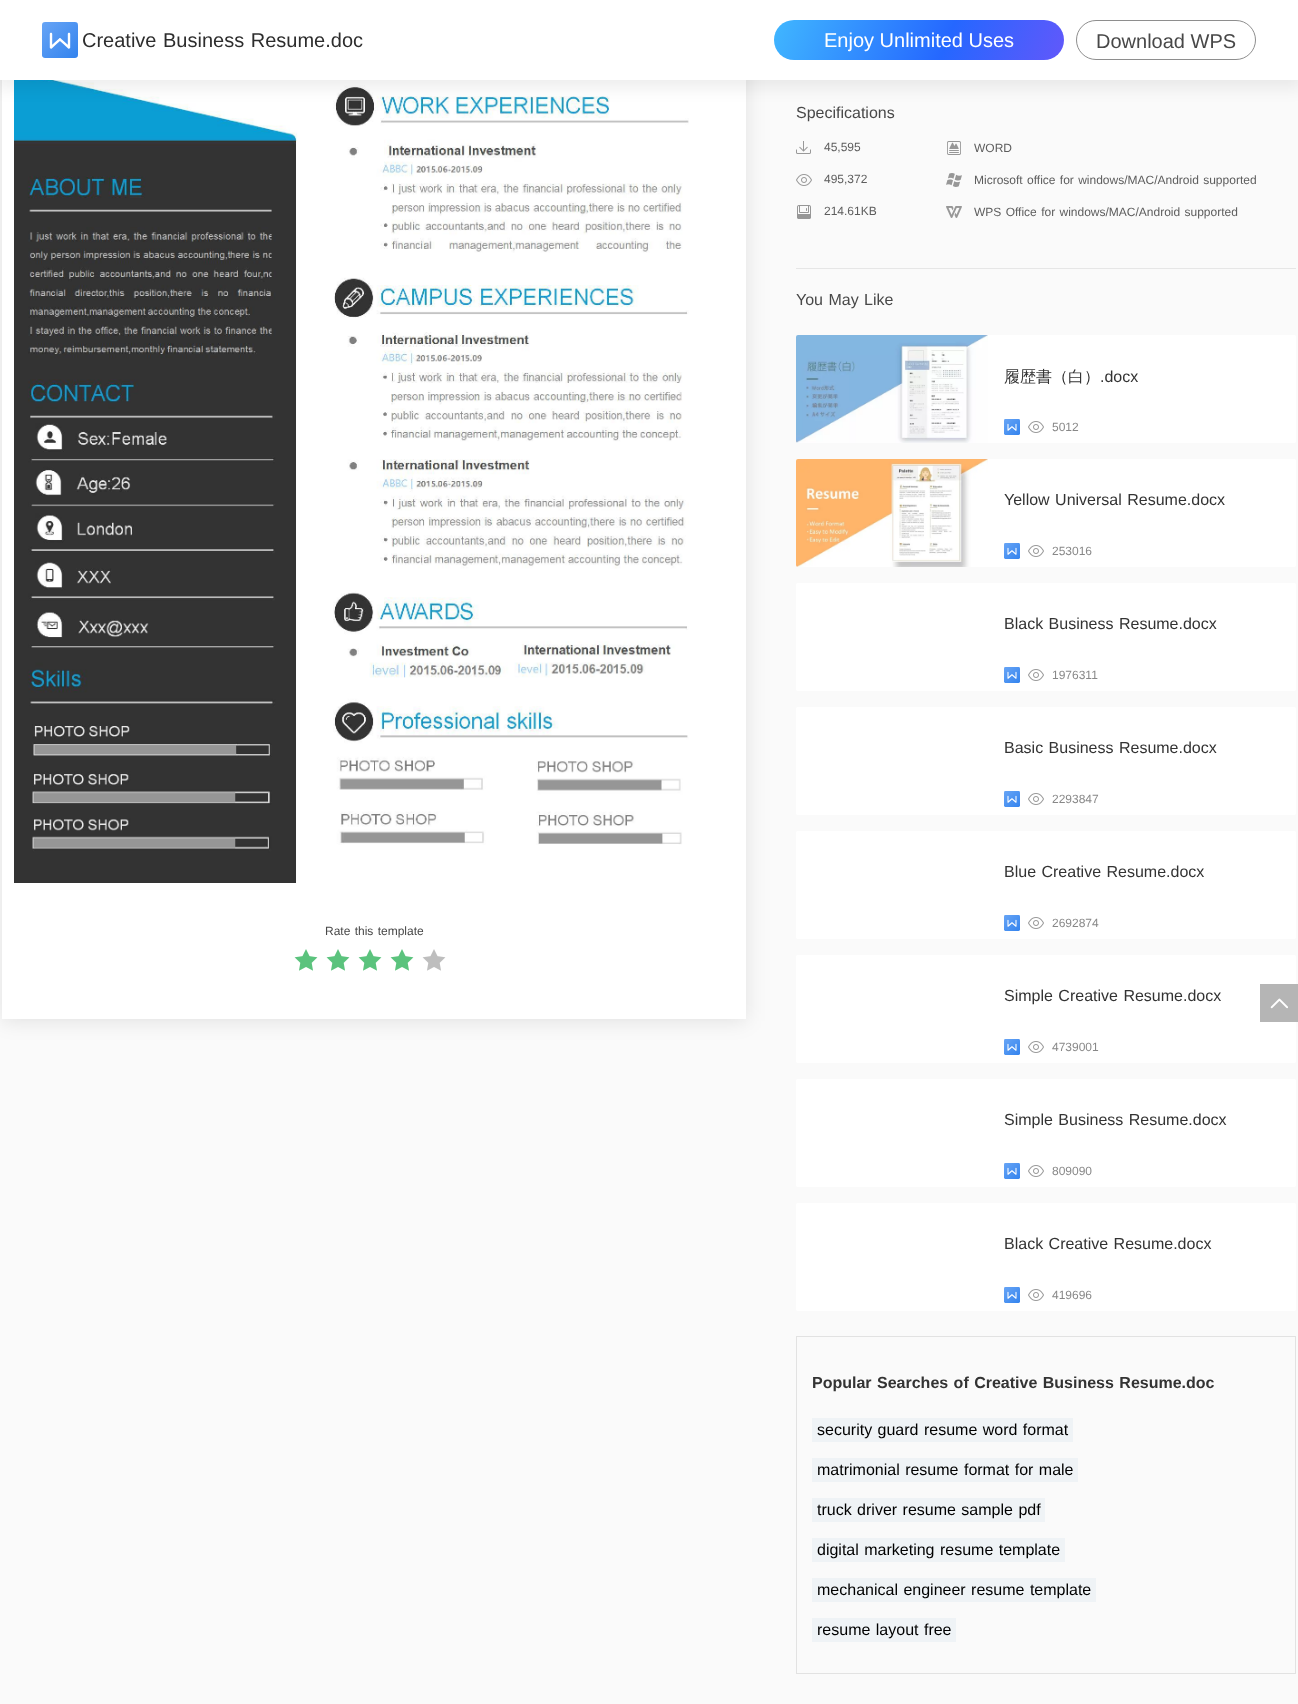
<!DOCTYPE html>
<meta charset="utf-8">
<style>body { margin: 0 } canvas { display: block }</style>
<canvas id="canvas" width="1298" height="1704"></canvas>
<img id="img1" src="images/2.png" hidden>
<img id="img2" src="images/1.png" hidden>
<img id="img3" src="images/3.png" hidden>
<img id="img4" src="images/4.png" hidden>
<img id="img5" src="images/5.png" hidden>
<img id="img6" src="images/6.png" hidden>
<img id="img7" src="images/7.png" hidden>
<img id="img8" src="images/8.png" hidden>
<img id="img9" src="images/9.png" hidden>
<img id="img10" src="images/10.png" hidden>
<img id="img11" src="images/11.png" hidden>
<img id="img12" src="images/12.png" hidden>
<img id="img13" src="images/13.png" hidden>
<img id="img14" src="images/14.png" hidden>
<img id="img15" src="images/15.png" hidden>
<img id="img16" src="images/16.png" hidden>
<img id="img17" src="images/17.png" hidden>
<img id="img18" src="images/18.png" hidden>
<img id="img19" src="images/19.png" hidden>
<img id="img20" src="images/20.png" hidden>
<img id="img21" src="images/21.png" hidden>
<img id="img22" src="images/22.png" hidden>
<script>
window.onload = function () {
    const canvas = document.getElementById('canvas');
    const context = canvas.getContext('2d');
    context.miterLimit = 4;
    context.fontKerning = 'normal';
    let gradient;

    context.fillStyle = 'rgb(250, 250, 250)';
    context.fillRect(0, 0, 1298, 1704);
    context.fillStyle = 'rgba(0, 0, 0, 0.1)';
    context.filter = 'blur(10px)';
    context.beginPath();
    context.rect(2, -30, 744, 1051);
    context.fill();
    context.filter = 'none';
    context.fillStyle = 'rgb(255, 255, 255)';
    context.fillRect(2, 80, 744, 939);
    context.drawImage(document.getElementById('img1'), 14, 80, 675, 803);
    context.fillStyle = 'rgba(0, 0, 0, 0.07)';
    context.filter = 'blur(8px)';
    context.beginPath();
    context.rect(-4, 0, 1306, 88);
    context.fill();
    context.filter = 'none';
    context.fillStyle = 'rgb(255, 255, 255)';
    context.fillRect(0, 0, 1298, 80);
    context.drawImage(document.getElementById('img2'), 42, 22, 36, 36);
    gradient = context.createLinearGradient(1121, 121, 759, -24);
    gradient.addColorStop(0, 'rgb(137, 78, 248)');
    gradient.addColorStop(0.49, 'rgb(37, 103, 255)');
    gradient.addColorStop(1, 'rgb(69, 197, 255)');
    context.fillStyle = gradient;
    context.beginPath();
    context.roundRect(774, 20, 290, 40, 20);
    context.fill();
    context.beginPath();
    context.roundRect(1076.5, 20.5, 179, 39, 19.5);
    context.strokeStyle = 'rgb(142, 142, 142)';
    context.stroke();
    context.drawImage(document.getElementById('img3'), 294, 949, 24, 22);
    context.drawImage(document.getElementById('img3'), 326, 949, 24, 22);
    context.drawImage(document.getElementById('img3'), 358, 949, 24, 22);
    context.drawImage(document.getElementById('img3'), 390, 949, 24, 22);
    context.drawImage(document.getElementById('img4'), 422, 949, 24, 22);
    context.fillStyle = 'rgb(230, 230, 230)';
    context.fillRect(796, 268, 500, 1);
    context.drawImage(document.getElementById('img5'), 796, 141, 15, 13);
    context.drawImage(document.getElementById('img6'), 947, 141, 14, 14);
    context.drawImage(document.getElementById('img7'), 796, 174, 16, 12);
    context.drawImage(document.getElementById('img8'), 946, 173, 16, 14);
    context.drawImage(document.getElementById('img9'), 797, 205, 14, 14);
    context.drawImage(document.getElementById('img10'), 946, 206, 16, 12);
    context.fillStyle = 'rgb(255, 255, 255)';
    context.beginPath();
    context.roundRect(796, 335, 500, 108, 2);
    context.fill();
    context.drawImage(document.getElementById('img11'), 796, 335, 192, 108);
    context.drawImage(document.getElementById('img12'), 1004, 419, 16, 16);
    context.drawImage(document.getElementById('img13'), 1028, 421, 16, 12);
    context.beginPath();
    context.roundRect(796, 459, 500, 108, 2);
    context.fill();
    context.drawImage(document.getElementById('img14'), 796, 459, 192, 108);
    context.drawImage(document.getElementById('img15'), 1004, 543, 16, 16);
    context.drawImage(document.getElementById('img13'), 1028, 545, 16, 12);
    context.beginPath();
    context.roundRect(796, 583, 500, 108, 2);
    context.fill();
    context.drawImage(document.getElementById('img16'), 1004, 667, 16, 16);
    context.drawImage(document.getElementById('img13'), 1028, 669, 16, 12);
    context.beginPath();
    context.roundRect(796, 707, 500, 108, 2);
    context.fill();
    context.drawImage(document.getElementById('img17'), 1004, 791, 16, 16);
    context.drawImage(document.getElementById('img13'), 1028, 793, 16, 12);
    context.beginPath();
    context.roundRect(796, 831, 500, 108, 2);
    context.fill();
    context.drawImage(document.getElementById('img18'), 1004, 915, 16, 16);
    context.drawImage(document.getElementById('img13'), 1028, 917, 16, 12);
    context.beginPath();
    context.roundRect(796, 955, 500, 108, 2);
    context.fill();
    context.drawImage(document.getElementById('img19'), 1004, 1039, 16, 16);
    context.drawImage(document.getElementById('img13'), 1028, 1041, 16, 12);
    context.beginPath();
    context.roundRect(796, 1079, 500, 108, 2);
    context.fill();
    context.drawImage(document.getElementById('img20'), 1004, 1163, 16, 16);
    context.drawImage(document.getElementById('img13'), 1028, 1165, 16, 12);
    context.beginPath();
    context.roundRect(796, 1203, 500, 108, 2);
    context.fill();
    context.drawImage(document.getElementById('img21'), 1004, 1287, 16, 16);
    context.drawImage(document.getElementById('img13'), 1028, 1289, 16, 12);
    context.strokeStyle = 'rgb(226, 226, 226)';
    context.strokeRect(796.5, 1336.5, 499, 337);
    context.fillStyle = 'rgb(239, 243, 246)';
    context.fillRect(812, 1418, 261, 24);
    context.fillRect(812, 1458, 266, 24);
    context.fillRect(812, 1498, 233, 24);
    context.fillRect(812, 1538, 253, 24);
    context.fillRect(812, 1578, 284, 24);
    context.fillRect(812, 1618, 144, 24);
    context.fillStyle = 'rgb(181, 181, 181)';
    context.fillRect(1260, 984, 38, 38);
    context.drawImage(document.getElementById('img22'), 1270, 998, 18, 11);
    context.wordSpacing = '1px';
    context.font = '20px Liberation Sans';
    context.fillStyle = 'rgb(45, 45, 45)';
    context.fillText('Creative Business Resume.doc', 82, 47);
    context.wordSpacing = '0px';
    context.fillStyle = 'rgb(255, 255, 255)';
    context.fillText('Enjoy Unlimited Uses', 824, 47);
    context.fillStyle = 'rgb(72, 72, 72)';
    context.fillText('Download WPS', 1096, 48);
    context.wordSpacing = '1px';
    context.font = '12px Liberation Sans';
    context.fillText('Rate this template', 325, 935);
    context.wordSpacing = '0px';
    context.font = '16px Liberation Sans';
    context.fillText('Specifications', 796, 118);
    context.font = '12px Liberation Sans';
    context.fillStyle = 'rgb(93, 93, 93)';
    context.fillText('45,595', 824, 151);
    context.fillText('WORD', 974, 152);
    context.fillText('495,372', 824, 183);
    context.wordSpacing = '1px';
    context.fillText('Microsoft office for windows/MAC/Android supported', 974, 184);
    context.wordSpacing = '0px';
    context.fillText('214.61KB', 824, 215);
    context.wordSpacing = '1px';
    context.fillText('WPS Office for windows/MAC/Android supported', 974, 216);
    context.font = '16px Liberation Sans';
    context.fillStyle = 'rgb(72, 72, 72)';
    context.fillText('You May Like', 796, 305);
    context.wordSpacing = '0px';
    context.font = '500 16px WenQuanYi Zen Hei';
    context.fillStyle = 'rgb(51, 51, 51)';
    context.fillText('履歴書（白）', 1004, 382);
    context.font = '16px Liberation Sans';
    context.fillText('.docx', 1100, 382);
    context.font = '12px Liberation Sans';
    context.fillStyle = 'rgb(136, 136, 136)';
    context.fillText('5012', 1052, 431);
    context.wordSpacing = '1px';
    context.font = '16px Liberation Sans';
    context.fillStyle = 'rgb(51, 51, 51)';
    context.fillText('Yellow Universal Resume.docx', 1004, 505);
    context.wordSpacing = '0px';
    context.font = '12px Liberation Sans';
    context.fillStyle = 'rgb(136, 136, 136)';
    context.fillText('253016', 1052, 555);
    context.wordSpacing = '1px';
    context.font = '16px Liberation Sans';
    context.fillStyle = 'rgb(51, 51, 51)';
    context.fillText('Black Business Resume.docx', 1004, 629);
    context.wordSpacing = '0px';
    context.font = '12px Liberation Sans';
    context.fillStyle = 'rgb(136, 136, 136)';
    context.fillText('1976311', 1052, 679);
    context.wordSpacing = '1px';
    context.font = '16px Liberation Sans';
    context.fillStyle = 'rgb(51, 51, 51)';
    context.fillText('Basic Business Resume.docx', 1004, 753);
    context.wordSpacing = '0px';
    context.font = '12px Liberation Sans';
    context.fillStyle = 'rgb(136, 136, 136)';
    context.fillText('2293847', 1052, 803);
    context.wordSpacing = '1px';
    context.font = '16px Liberation Sans';
    context.fillStyle = 'rgb(51, 51, 51)';
    context.fillText('Blue Creative Resume.docx', 1004, 877);
    context.wordSpacing = '0px';
    context.font = '12px Liberation Sans';
    context.fillStyle = 'rgb(136, 136, 136)';
    context.fillText('2692874', 1052, 927);
    context.wordSpacing = '1px';
    context.font = '16px Liberation Sans';
    context.fillStyle = 'rgb(51, 51, 51)';
    context.fillText('Simple Creative Resume.docx', 1004, 1001);
    context.wordSpacing = '0px';
    context.font = '12px Liberation Sans';
    context.fillStyle = 'rgb(136, 136, 136)';
    context.fillText('4739001', 1052, 1051);
    context.wordSpacing = '1px';
    context.font = '16px Liberation Sans';
    context.fillStyle = 'rgb(51, 51, 51)';
    context.fillText('Simple Business Resume.docx', 1004, 1125);
    context.wordSpacing = '0px';
    context.font = '12px Liberation Sans';
    context.fillStyle = 'rgb(136, 136, 136)';
    context.fillText('809090', 1052, 1175);
    context.wordSpacing = '1px';
    context.font = '16px Liberation Sans';
    context.fillStyle = 'rgb(51, 51, 51)';
    context.fillText('Black Creative Resume.docx', 1004, 1249);
    context.wordSpacing = '0px';
    context.font = '12px Liberation Sans';
    context.fillStyle = 'rgb(136, 136, 136)';
    context.fillText('419696', 1052, 1299);
    context.wordSpacing = '1px';
    context.font = 'bold 16px Liberation Sans';
    context.fillStyle = 'rgb(51, 51, 51)';
    context.fillText('Popular Searches of Creative Business Resume.doc', 812, 1388);
    context.font = '16px Liberation Sans';
    context.fillStyle = 'rgb(0, 0, 0)';
    context.fillText('security guard resume word format', 817, 1435);
    context.fillText('matrimonial resume format for male', 817, 1475);
    context.fillText('truck driver resume sample pdf', 817, 1515);
    context.fillText('digital marketing resume template', 817, 1555);
    context.fillText('mechanical engineer resume template', 817, 1595);
    context.fillText('resume layout free', 817, 1635);
};
</script>
